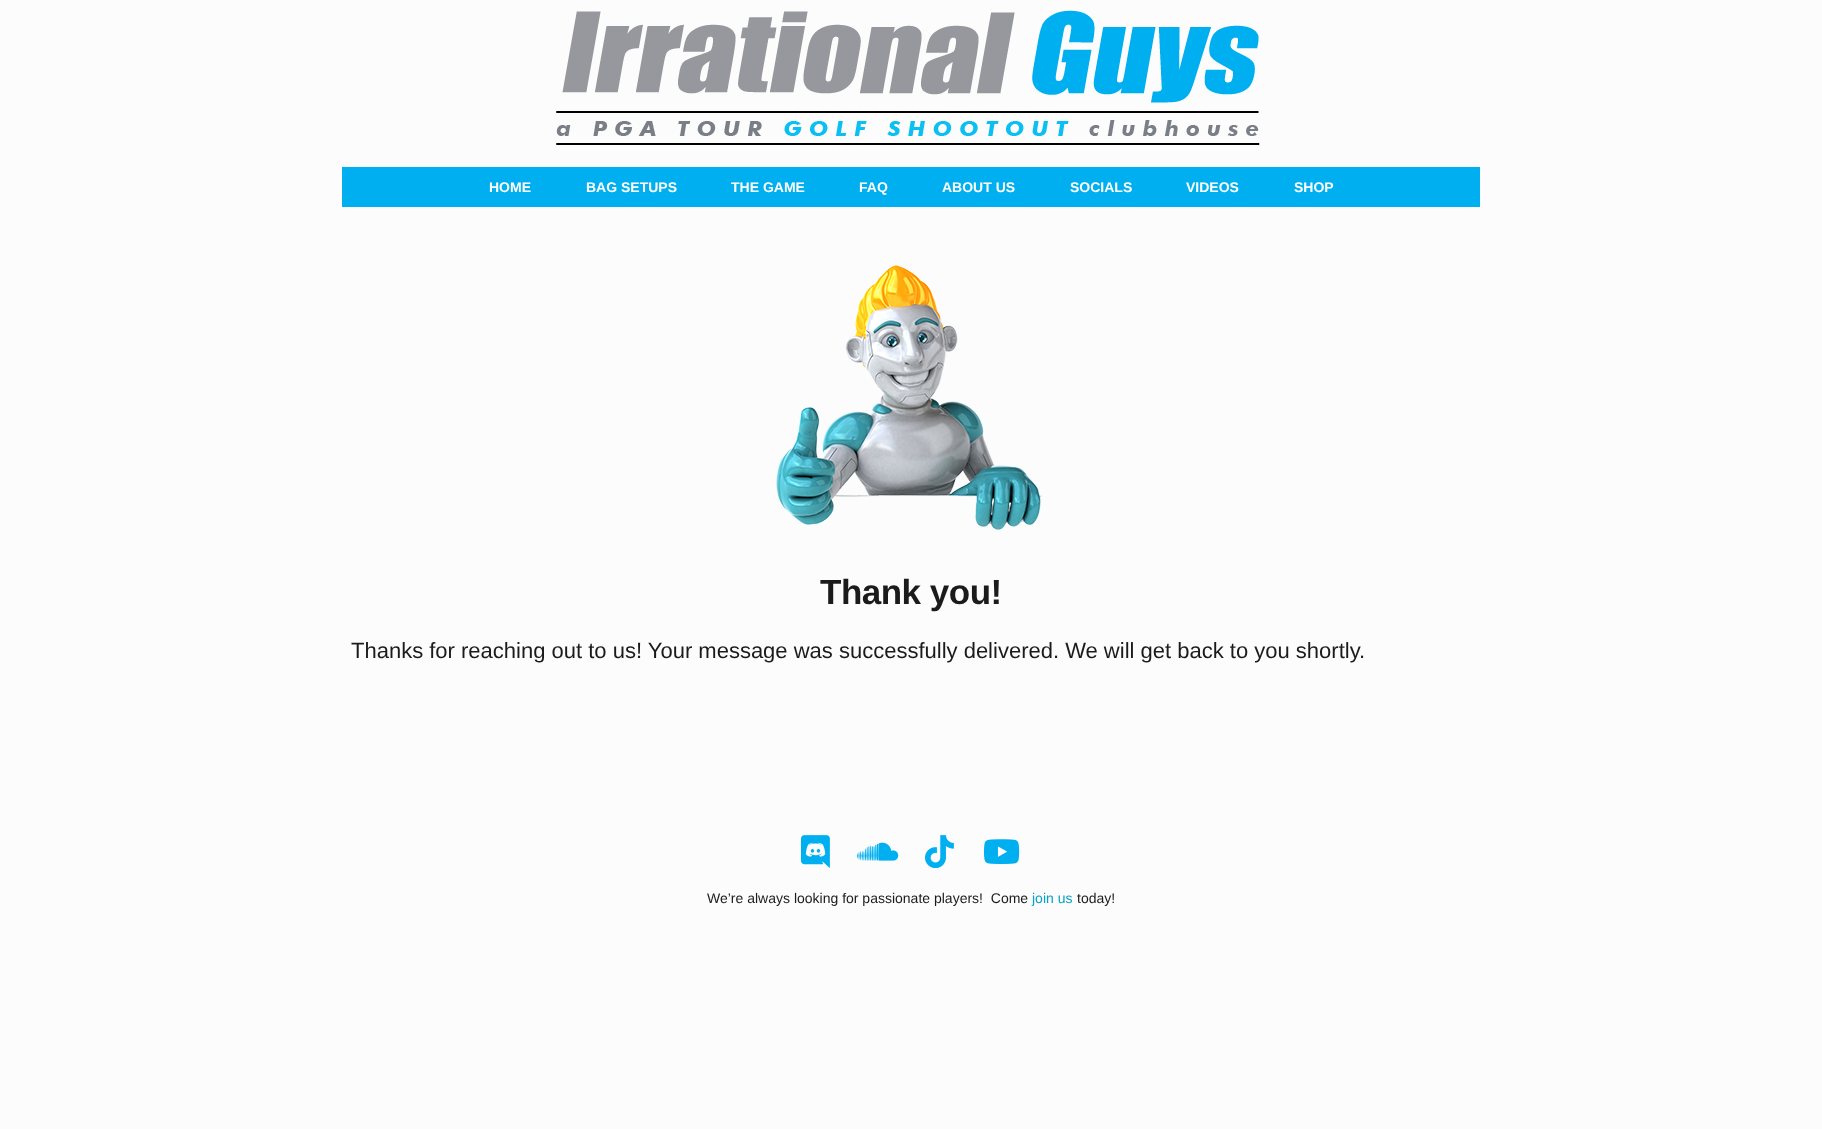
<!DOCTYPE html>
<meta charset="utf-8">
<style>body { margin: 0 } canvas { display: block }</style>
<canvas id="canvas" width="1822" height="1129"></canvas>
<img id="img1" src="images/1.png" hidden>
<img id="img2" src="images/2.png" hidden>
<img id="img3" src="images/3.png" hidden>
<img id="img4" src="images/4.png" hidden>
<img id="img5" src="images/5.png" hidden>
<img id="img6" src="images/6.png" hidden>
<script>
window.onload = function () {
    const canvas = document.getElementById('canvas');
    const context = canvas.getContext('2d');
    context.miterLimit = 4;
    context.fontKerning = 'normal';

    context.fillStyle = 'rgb(252, 252, 252)';
    context.fillRect(0, 0, 1822, 1129);
    context.drawImage(document.getElementById('img1'), 556, 10, 704, 135);
    context.fillStyle = 'rgb(0, 175, 239)';
    context.fillRect(342, 167, 1138, 40);
    context.drawImage(document.getElementById('img2'), 776, 265, 266, 265);
    context.drawImage(document.getElementById('img3'), 801, 835, 29, 33);
    context.drawImage(document.getElementById('img4'), 857, 842, 42, 19);
    context.drawImage(document.getElementById('img5'), 925, 835, 29, 33);
    context.drawImage(document.getElementById('img6'), 983, 839, 37, 25);
    context.font = 'bold 14px Liberation Sans';
    context.fillStyle = 'rgb(255, 255, 255)';
    context.fillText('HOME', 489, 192);
    context.fillText('BAG SETUPS', 586, 192);
    context.fillText('THE GAME', 731, 192);
    context.fillText('FAQ', 859, 192);
    context.fillText('ABOUT US', 942, 192);
    context.fillText('SOCIALS', 1070, 192);
    context.fillText('VIDEOS', 1186, 192);
    context.fillText('SHOP', 1294, 192);
    context.letterSpacing = '-0.5px';
    context.font = 'bold 35px Liberation Sans';
    context.fillStyle = 'rgb(27, 27, 27)';
    context.fillText('Thank you!', 820, 604);
    context.letterSpacing = '0px';
    context.font = '22px Liberation Sans';
    context.fillText('Thanks for reaching out to us! Your message was successfully delivered. We will get back to you shortly.', 351, 658);
    context.font = '14px Liberation Sans';
    context.fillText('We’re always looking for passionate players!  Come', 707, 903);
    context.fillStyle = 'rgb(5, 162, 199)';
    context.fillText('join us', 1032, 903);
    context.fillStyle = 'rgb(27, 27, 27)';
    context.fillText('today!', 1077, 903);
};
</script>
